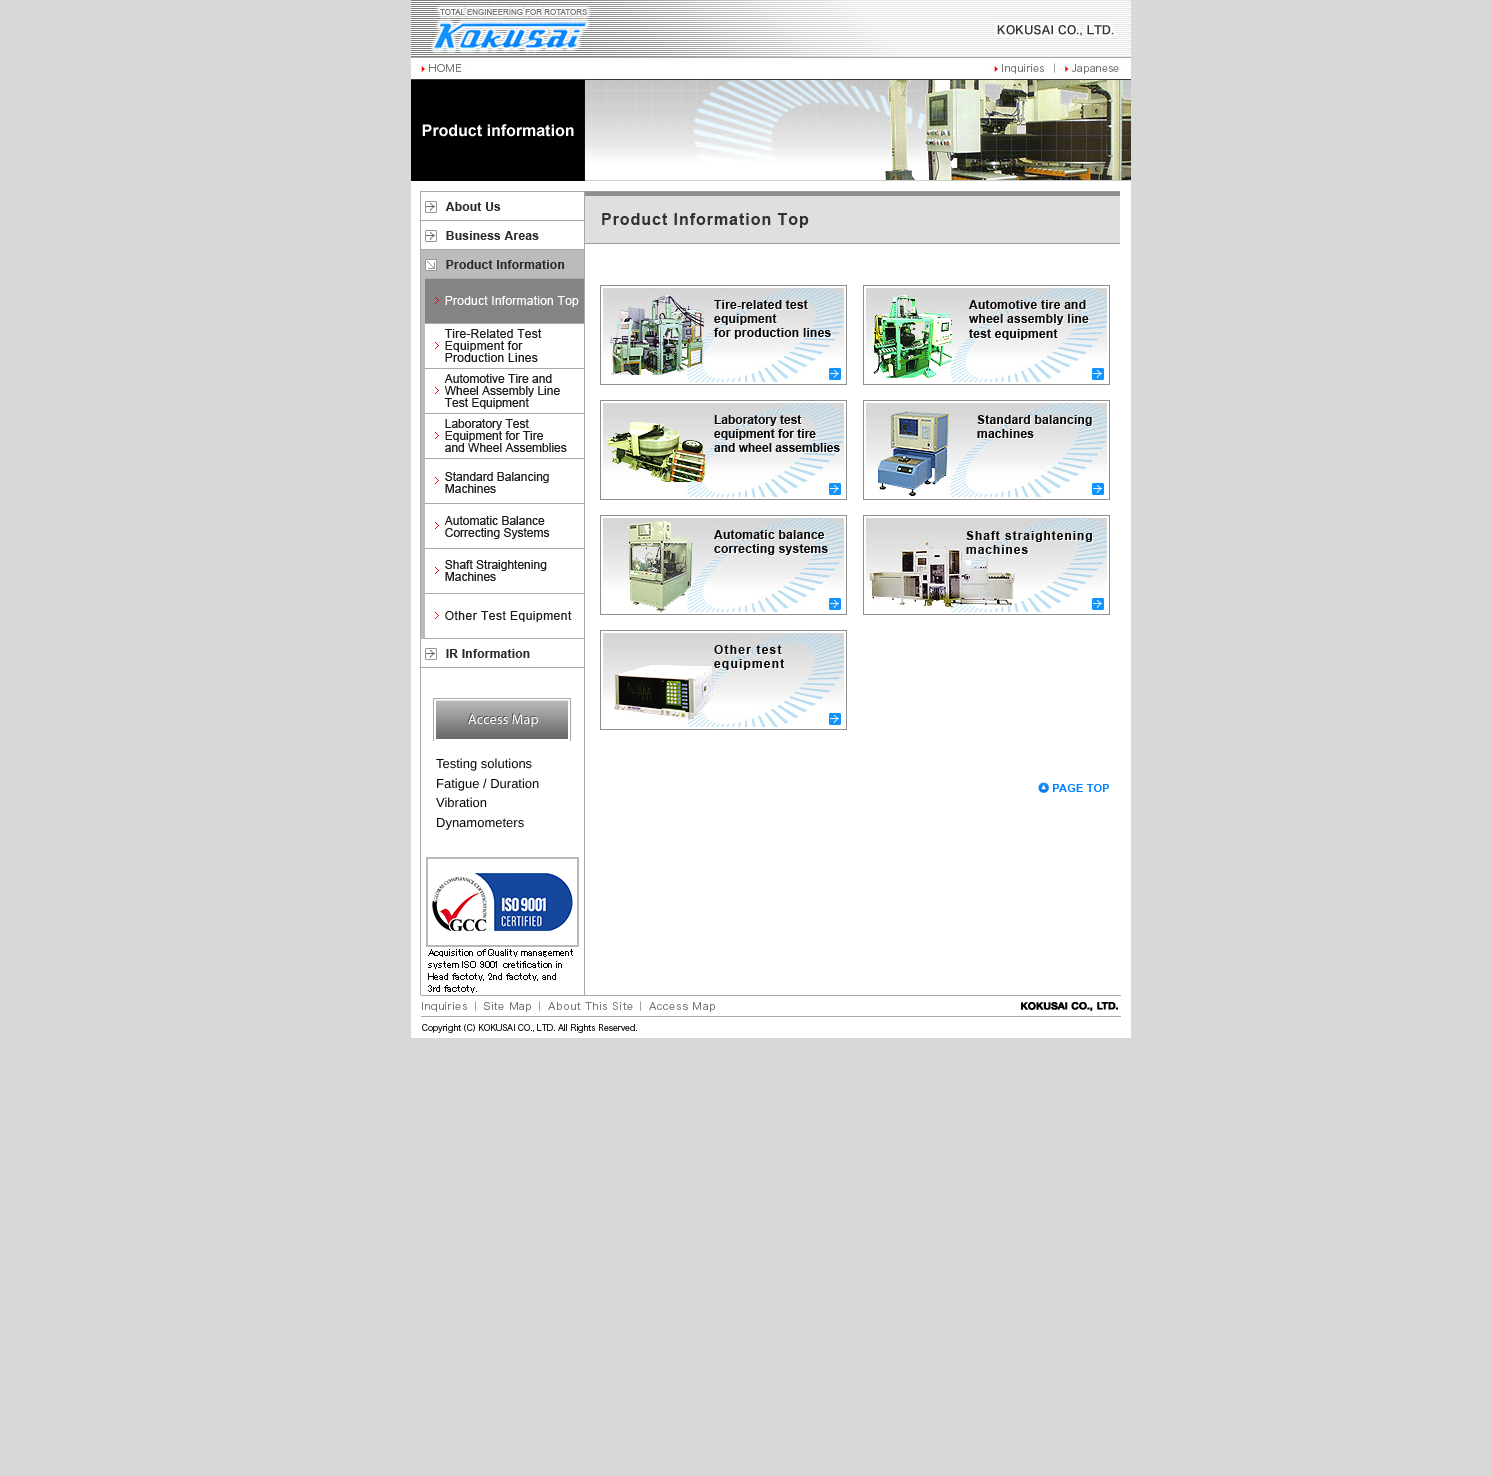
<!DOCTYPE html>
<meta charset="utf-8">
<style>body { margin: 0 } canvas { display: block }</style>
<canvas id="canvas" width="1491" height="1476"></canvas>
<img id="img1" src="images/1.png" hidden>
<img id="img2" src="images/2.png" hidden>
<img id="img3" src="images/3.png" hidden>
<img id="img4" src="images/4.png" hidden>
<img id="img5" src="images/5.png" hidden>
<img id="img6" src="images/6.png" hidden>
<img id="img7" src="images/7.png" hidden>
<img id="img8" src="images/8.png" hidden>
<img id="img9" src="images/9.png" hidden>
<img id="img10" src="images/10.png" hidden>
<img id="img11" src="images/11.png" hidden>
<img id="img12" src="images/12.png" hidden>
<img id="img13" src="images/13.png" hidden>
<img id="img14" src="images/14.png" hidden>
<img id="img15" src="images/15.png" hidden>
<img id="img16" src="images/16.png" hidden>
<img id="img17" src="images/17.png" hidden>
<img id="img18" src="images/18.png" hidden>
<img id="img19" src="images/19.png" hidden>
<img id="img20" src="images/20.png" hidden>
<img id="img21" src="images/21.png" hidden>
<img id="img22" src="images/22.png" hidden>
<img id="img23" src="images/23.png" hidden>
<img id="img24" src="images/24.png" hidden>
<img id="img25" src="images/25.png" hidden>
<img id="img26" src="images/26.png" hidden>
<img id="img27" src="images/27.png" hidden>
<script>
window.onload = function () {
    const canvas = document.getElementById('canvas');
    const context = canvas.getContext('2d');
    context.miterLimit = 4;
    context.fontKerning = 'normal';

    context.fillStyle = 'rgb(216, 216, 216)';
    context.fillRect(0, 0, 1491, 1476);
    context.fillStyle = 'rgb(255, 255, 255)';
    context.fillRect(411, 78, 720, 960);
    context.drawImage(document.getElementById('img1'), 411, 0, 720, 78);
    context.drawImage(document.getElementById('img2'), 411, 79, 720, 102);
    context.fillStyle = 'rgb(168, 168, 168)';
    context.fillRect(420, 191, 1, 804);
    context.drawImage(document.getElementById('img3'), 421, 191, 163, 30);
    context.drawImage(document.getElementById('img4'), 421, 230, 163, 20);
    context.drawImage(document.getElementById('img5'), 421, 250, 163, 29);
    context.drawImage(document.getElementById('img6'), 421, 279, 163, 45);
    context.drawImage(document.getElementById('img7'), 421, 324, 163, 45);
    context.drawImage(document.getElementById('img8'), 421, 369, 163, 45);
    context.drawImage(document.getElementById('img9'), 421, 414, 163, 45);
    context.drawImage(document.getElementById('img10'), 421, 459, 163, 45);
    context.drawImage(document.getElementById('img11'), 421, 504, 163, 45);
    context.drawImage(document.getElementById('img12'), 421, 549, 163, 45);
    context.drawImage(document.getElementById('img13'), 421, 594, 163, 45);
    context.drawImage(document.getElementById('img14'), 421, 648, 163, 20);
    context.drawImage(document.getElementById('img15'), 433, 698, 138, 43);
    context.drawImage(document.getElementById('img16'), 426, 857, 153, 90);
    context.drawImage(document.getElementById('img17'), 428, 949, 145, 44);
    context.fillRect(584, 191, 1, 804);
    context.fillStyle = 'rgb(155, 155, 155)';
    context.fillRect(585, 191, 535, 1);
    context.fillRect(585, 243, 535, 1);
    context.drawImage(document.getElementById('img18'), 585, 192, 535, 51);
    context.drawImage(document.getElementById('img19'), 600, 285, 247, 100);
    context.drawImage(document.getElementById('img20'), 863, 285, 247, 100);
    context.drawImage(document.getElementById('img21'), 600, 400, 247, 100);
    context.drawImage(document.getElementById('img22'), 863, 400, 247, 100);
    context.drawImage(document.getElementById('img23'), 600, 515, 247, 100);
    context.drawImage(document.getElementById('img24'), 863, 515, 247, 100);
    context.drawImage(document.getElementById('img25'), 600, 630, 247, 100);
    context.drawImage(document.getElementById('img26'), 1038, 782, 72, 11);
    context.drawImage(document.getElementById('img27'), 421, 995, 700, 38);
    context.font = '13px Liberation Sans';
    context.fillStyle = 'rgb(0, 0, 0)';
    context.fillText('Testing solutions', 436, 768);
    context.fillText('Fatigue / Duration', 436, 788);
    context.fillText('Vibration', 436, 807);
    context.fillText('Dynamometers', 436, 827);
};
</script>
